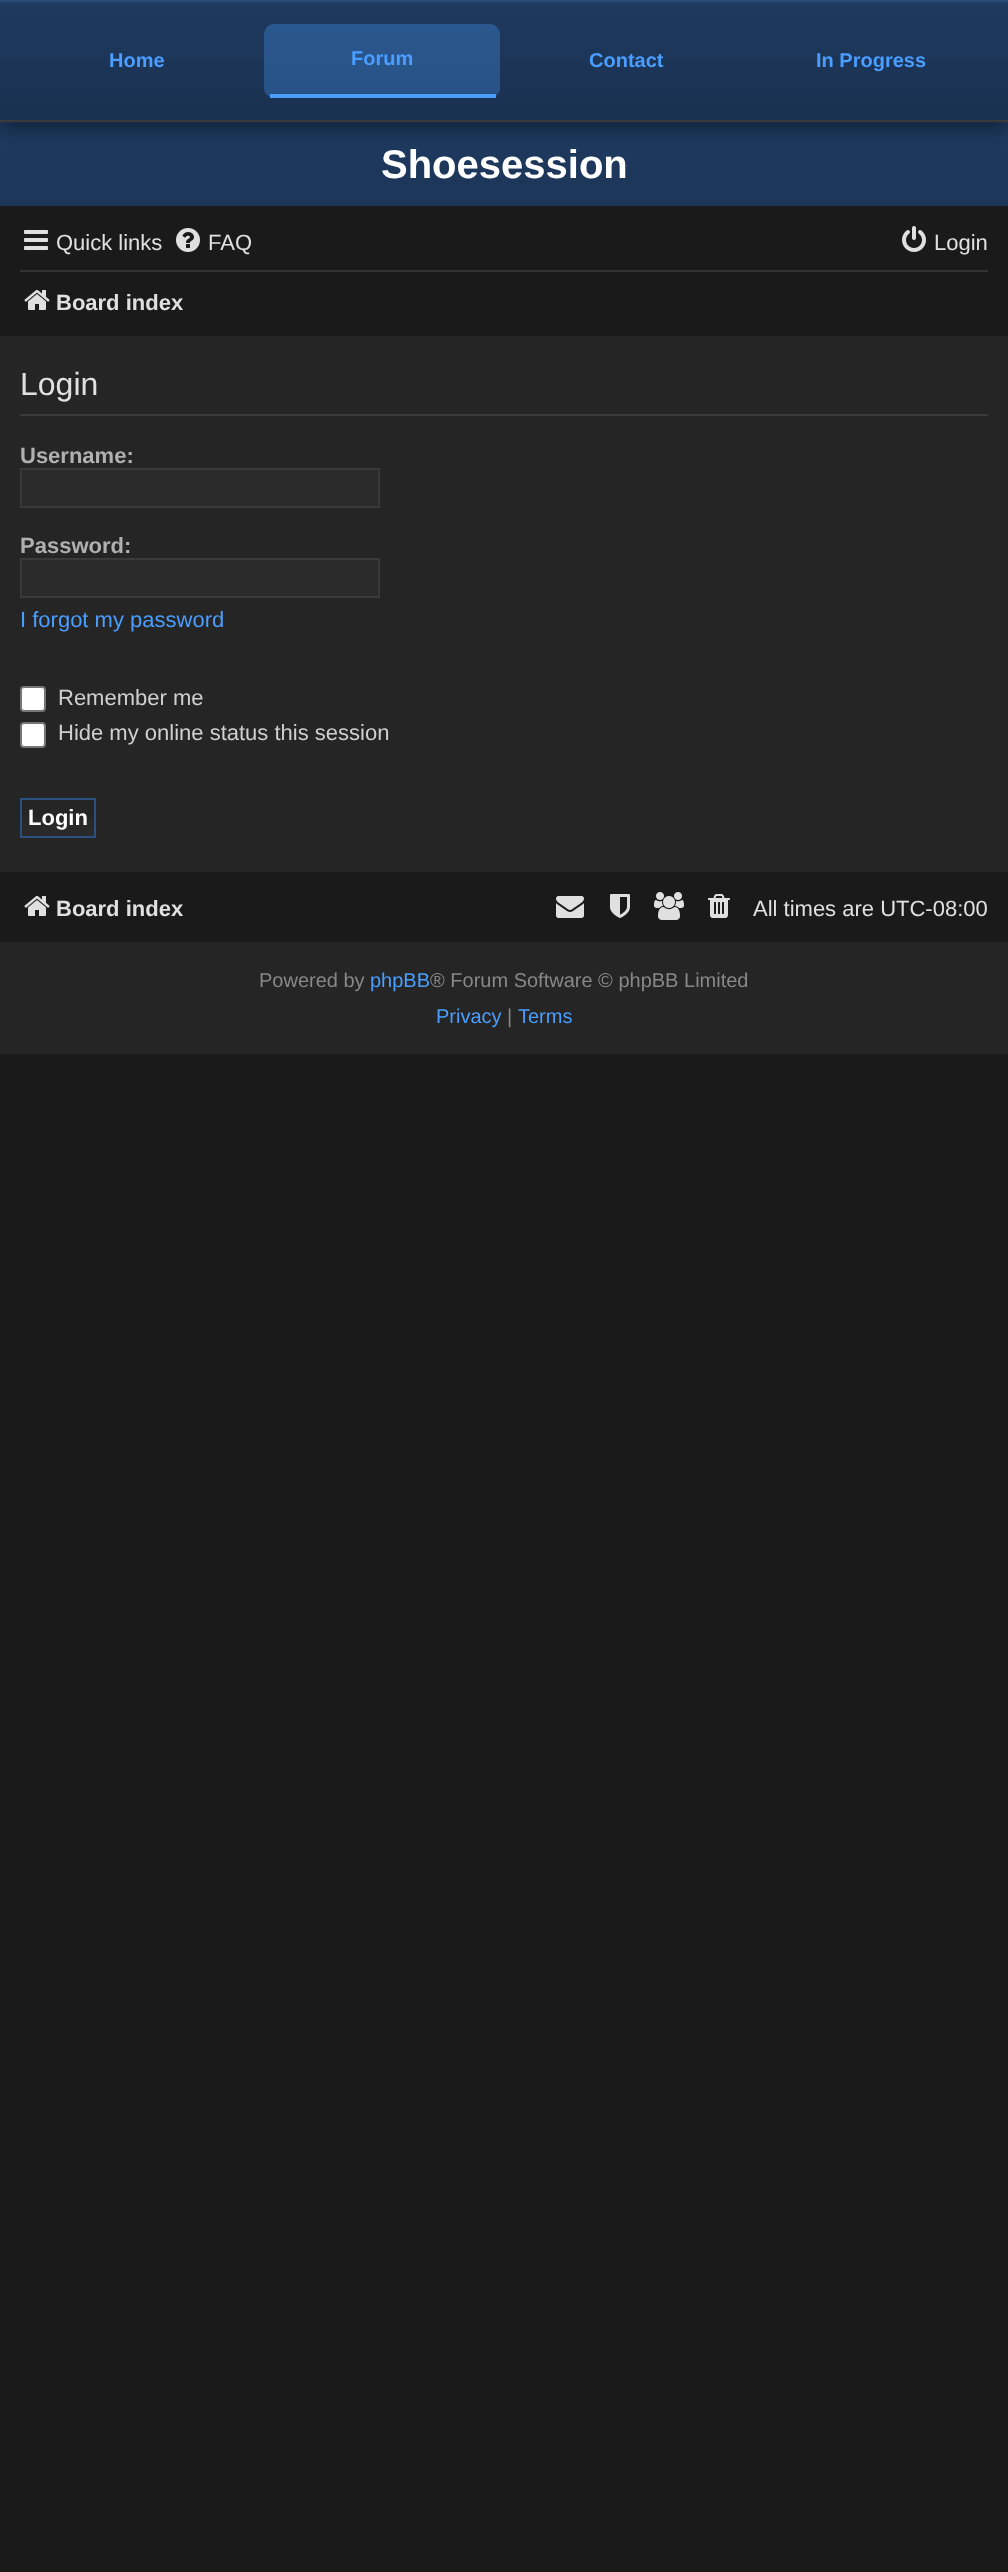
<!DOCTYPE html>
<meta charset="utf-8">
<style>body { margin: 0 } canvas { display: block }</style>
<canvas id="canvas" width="1008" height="2572"></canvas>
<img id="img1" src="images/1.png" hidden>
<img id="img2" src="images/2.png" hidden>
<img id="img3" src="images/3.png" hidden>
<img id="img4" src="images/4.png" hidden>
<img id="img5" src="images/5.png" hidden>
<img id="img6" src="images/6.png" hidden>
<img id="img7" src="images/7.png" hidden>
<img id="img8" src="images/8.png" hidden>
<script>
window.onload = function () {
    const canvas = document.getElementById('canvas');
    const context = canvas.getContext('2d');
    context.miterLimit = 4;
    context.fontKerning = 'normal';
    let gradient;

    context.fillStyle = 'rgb(26, 26, 26)';
    context.fillRect(0, 0, 1008, 2572);
    gradient = context.createLinearGradient(504, 120, 504, 304);
    gradient.addColorStop(0, 'rgb(42, 80, 128)');
    gradient.addColorStop(0.02, 'rgb(30, 58, 95)');
    gradient.addColorStop(1, 'rgb(26, 48, 80)');
    context.fillStyle = gradient;
    context.fillRect(0, 122, 1008, 84);
    context.fillStyle = 'rgba(0, 0, 0, 0.5)';
    context.filter = 'blur(10px)';
    context.beginPath();
    context.rect(0, 4, 1008, 122);
    context.fill();
    context.filter = 'none';
    gradient = context.createLinearGradient(504, 0, 504, 120);
    gradient.addColorStop(0, 'rgb(42, 80, 128)');
    gradient.addColorStop(0.03, 'rgb(30, 58, 95)');
    gradient.addColorStop(1, 'rgb(26, 48, 80)');
    context.fillStyle = gradient;
    context.fillRect(0, 0, 1008, 120);
    context.fillStyle = 'rgb(58, 58, 58)';
    context.fillRect(0, 120, 1008, 2);
    context.fillStyle = 'rgba(74, 158, 255, 0.3)';
    context.beginPath();
    context.roundRect(264, 24, 236, 74, 10);
    context.fill();
    context.fillStyle = 'rgb(74, 158, 255)';
    context.fillRect(270, 94, 226, 4);
    context.fillStyle = 'rgb(37, 37, 37)';
    context.fillRect(0, 336, 1008, 718);
    context.drawImage(document.getElementById('img1'), 24, 230, 24, 20);
    context.drawImage(document.getElementById('img2'), 176, 228, 24, 24);
    context.drawImage(document.getElementById('img3'), 902, 226, 24, 26);
    context.fillStyle = 'rgb(51, 51, 51)';
    context.fillRect(20, 270, 968, 2);
    context.drawImage(document.getElementById('img4'), 24, 290, 26, 20);
    context.fillStyle = 'rgb(58, 58, 58)';
    context.fillRect(20, 414, 968, 2);
    context.fillStyle = 'rgb(42, 42, 42)';
    context.beginPath();
    context.rect(21, 469, 358, 38);
    context.fill();
    context.strokeStyle = 'rgb(58, 58, 58)';
    context.lineWidth = 2;
    context.stroke();
    context.beginPath();
    context.rect(21, 559, 358, 38);
    context.fill();
    context.stroke();
    context.fillStyle = 'rgb(255, 255, 255)';
    context.beginPath();
    context.roundRect(21, 687, 24, 24, 3);
    context.fill();
    context.strokeStyle = 'rgb(118, 118, 118)';
    context.stroke();
    context.beginPath();
    context.roundRect(21, 723, 24, 24, 3);
    context.fill();
    context.stroke();
    gradient = context.createLinearGradient(58, 800, 58, 836);
    gradient.addColorStop(0, 'rgb(37, 37, 37)');
    gradient.addColorStop(1, 'rgb(42, 42, 42)');
    context.fillStyle = gradient;
    context.fillRect(22, 818, 72, 18);
    context.strokeStyle = 'rgb(42, 80, 128)';
    context.strokeRect(21, 799, 74, 38);
    context.fillStyle = 'rgb(26, 26, 26)';
    context.fillRect(0, 872, 1008, 70);
    context.drawImage(document.getElementById('img4'), 24, 896, 26, 20);
    context.drawImage(document.getElementById('img5'), 556, 896, 28, 22);
    context.drawImage(document.getElementById('img6'), 610, 894, 20, 24);
    context.drawImage(document.getElementById('img7'), 654, 892, 30, 28);
    context.drawImage(document.getElementById('img8'), 708, 894, 22, 24);
    context.font = 'bold 20px Liberation Sans';
    context.fillStyle = 'rgb(74, 158, 255)';
    context.fillText('Home', 109, 67);
    context.fillText('Forum', 351, 65);
    context.fillText('Contact', 589, 67);
    context.fillText('In Progress', 816, 67);
    context.font = 'bold 40px Liberation Sans';
    context.fillStyle = 'rgb(255, 255, 255)';
    context.fillText('Shoesession', 381, 178);
    context.font = '22px Liberation Sans';
    context.fillStyle = 'rgb(224, 224, 224)';
    context.fillText('Quick links', 56, 250);
    context.fillText('FAQ', 208, 250);
    context.fillText('Login', 934, 250);
    context.font = 'bold 22px Liberation Sans';
    context.fillText('Board index', 56, 310);
    context.font = '32px Liberation Sans';
    context.fillText('Login', 20, 395);
    context.font = 'bold 22px Liberation Sans';
    context.fillStyle = 'rgb(176, 176, 176)';
    context.fillText('Username:', 20, 463);
    context.fillText('Password:', 20, 553);
    context.font = '22px Liberation Sans';
    context.fillStyle = 'rgb(74, 158, 255)';
    context.fillText('I forgot my password', 20, 627);
    context.fillStyle = 'rgb(208, 208, 208)';
    context.fillText('Remember me', 58, 705);
    context.fillText('Hide my online status this session', 58, 740);
    context.font = 'bold 22px Liberation Sans';
    context.fillStyle = 'rgb(255, 255, 255)';
    context.fillText('Login', 28, 825);
    context.fillStyle = 'rgb(224, 224, 224)';
    context.fillText('Board index', 56, 916);
    context.font = '22px Liberation Sans';
    context.fillText('All times are UTC-08:00', 753, 916);
    context.font = '20px Liberation Sans';
    context.fillStyle = 'rgb(136, 136, 136)';
    context.fillText('Powered by', 259, 987);
    context.fillStyle = 'rgb(74, 158, 255)';
    context.fillText('phpBB', 370, 987);
    context.fillStyle = 'rgb(136, 136, 136)';
    context.fillText('® Forum Software © phpBB Limited', 430, 987);
    context.fillStyle = 'rgb(74, 158, 255)';
    context.fillText('Privacy', 436, 1023);
    context.fillStyle = 'rgb(136, 136, 136)';
    context.fillText('|', 507, 1023);
    context.fillStyle = 'rgb(74, 158, 255)';
    context.fillText('Terms', 518, 1023);
};
</script>
